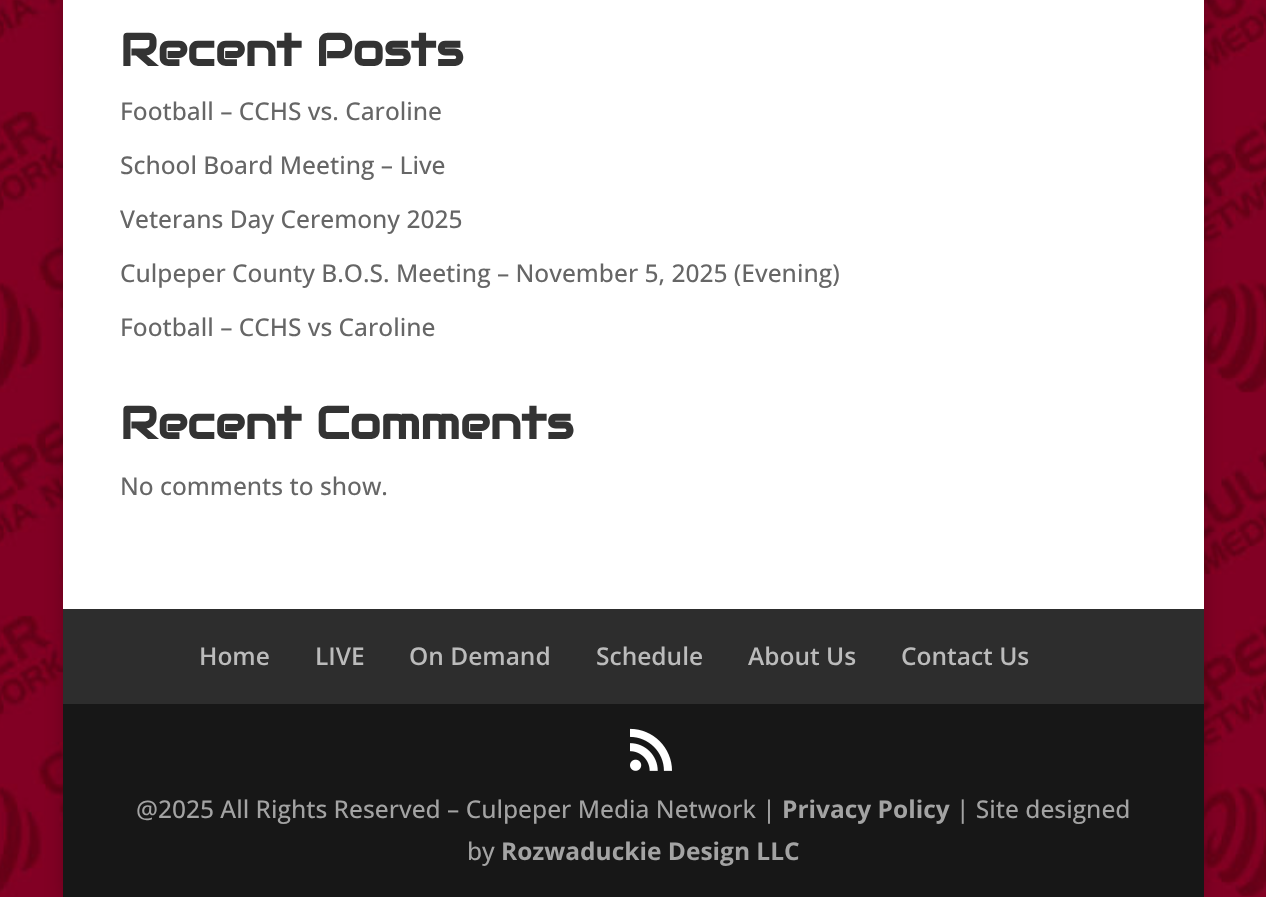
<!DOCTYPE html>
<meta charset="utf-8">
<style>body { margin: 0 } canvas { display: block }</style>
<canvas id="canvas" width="1266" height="897"></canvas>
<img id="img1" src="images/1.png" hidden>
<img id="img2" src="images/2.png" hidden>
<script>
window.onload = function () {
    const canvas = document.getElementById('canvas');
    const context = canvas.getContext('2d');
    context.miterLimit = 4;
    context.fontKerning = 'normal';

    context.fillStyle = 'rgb(255, 255, 255)';
    context.fillRect(0, 0, 1266, 897);
    context.drawImage(document.getElementById('img1'), 0, 0, 1266, 897);
    context.fillStyle = 'rgba(0, 0, 0, 0.2)';
    context.filter = 'blur(9px)';
    context.beginPath();
    context.rect(63, -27, 1141, 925);
    context.fill();
    context.filter = 'none';
    context.fillStyle = 'rgb(255, 255, 255)';
    context.fillRect(63, 0, 1141, 609);
    context.fillStyle = 'rgb(45, 45, 45)';
    context.fillRect(63, 609, 1141, 95);
    context.fillStyle = 'rgb(23, 23, 23)';
    context.fillRect(63, 704, 1141, 193);
    context.drawImage(document.getElementById('img2'), 630, 728, 42, 43);
    context.font = 'bold 45.5px Audiowide';
    context.fillStyle = 'rgb(51, 51, 51)';
    context.fillText('Recent Posts', 120, 66);
    context.font = '500 24.5px Open Sans';
    context.fillStyle = 'rgb(102, 102, 102)';
    context.fillText('Football – CCHS vs. Caroline', 120, 120);
    context.fillText('School Board Meeting – Live', 120, 174);
    context.fillText('Veterans Day Ceremony 2025', 120, 228);
    context.fillText('Culpeper County B.O.S. Meeting – November 5, 2025 (Evening)', 120, 282);
    context.fillText('Football – CCHS vs Caroline', 120, 336);
    context.font = 'bold 45.5px Audiowide';
    context.fillStyle = 'rgb(51, 51, 51)';
    context.fillText('Recent Comments', 120, 439);
    context.font = '500 24.5px Open Sans';
    context.fillStyle = 'rgb(102, 102, 102)';
    context.fillText('No comments to show.', 120, 495);
    context.font = '600 24.5px Open Sans';
    context.fillStyle = 'rgb(187, 187, 187)';
    context.fillText('Home', 199, 665);
    context.fillText('LIVE', 315, 665);
    context.fillText('On Demand', 409, 665);
    context.fillText('Schedule', 596, 665);
    context.fillText('About Us', 748, 665);
    context.fillText('Contact Us', 901, 665);
    context.font = '500 24.5px Open Sans';
    context.fillStyle = 'rgb(163, 163, 163)';
    context.fillText('@2025 All Rights Reserved – Culpeper Media Network |', 136, 818);
    context.font = 'bold 24.5px Open Sans';
    context.fillText('Privacy Policy', 782, 818);
    context.font = '500 24.5px Open Sans';
    context.fillText('| Site designed', 956, 818);
    context.fillText('by', 467, 860);
    context.font = 'bold 24.5px Open Sans';
    context.fillText('Rozwaduckie Design LLC', 501, 860);
};
</script>
